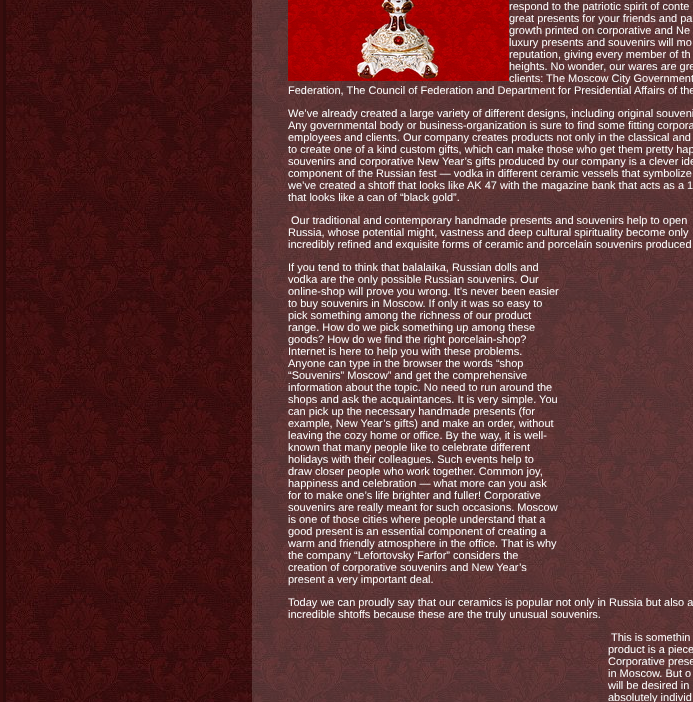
<!DOCTYPE html>
<meta charset="utf-8">
<style>body { margin: 0 } canvas { display: block }</style>
<canvas id="canvas" width="693" height="702"></canvas>
<img id="img1" src="images/1.png" hidden>
<img id="img2" src="images/2.png" hidden>
<script>
window.onload = function () {
    const canvas = document.getElementById('canvas');
    const context = canvas.getContext('2d');
    context.miterLimit = 4;
    context.fontKerning = 'normal';

    context.fillStyle = 'rgb(57, 13, 13)';
    context.fillRect(0, 0, 693, 702);
    context.fillStyle = 'rgb(47, 11, 11)';
    context.fillRect(3, 0, 3, 702);
    context.drawImage(document.getElementById('img1'), 6, 0, 687, 702);
    context.fillStyle = 'rgba(255, 255, 255, 0.16)';
    context.fillRect(252, 0, 441, 702);
    context.drawImage(document.getElementById('img2'), 288, 0, 221, 81);
    context.font = '11px Liberation Sans';
    context.fillStyle = 'rgb(255, 255, 255)';
    context.fillText('respond to the patriotic spirit of conte', 509, 10);
    context.fillText('great presents for your friends and pa', 509, 22);
    context.fillText('growth printed on corporative and Ne', 509, 34);
    context.fillText('luxury presents and souvenirs will mo', 509, 46);
    context.fillText('reputation, giving every member of th', 509, 58);
    context.fillText('heights. No wonder, our wares are gre', 509, 70);
    context.fillText('clients: The Moscow City Government', 509, 82);
    context.fillText('Federation, The Council of Federation and Department for Presidential Affairs of the', 288, 94);
    context.fillText('We’ve already created a large variety of different designs, including original souveni', 288, 117);
    context.fillText('Any governmental body or business-organization is sure to find some fitting corpora', 288, 129);
    context.fillText('employees and clients. Our company creates products not only in the classical and', 288, 141);
    context.fillText('to create one of a kind custom gifts, which can make those who get them pretty hap', 288, 153);
    context.fillText('souvenirs and corporative New Year’s gifts produced by our company is a clever ide', 288, 165);
    context.fillText('component of the Russian fest — vodka in different ceramic vessels that symbolize', 288, 177);
    context.fillText('we’ve created a shtoff that looks like AK 47 with the magazine bank that acts as a 1', 288, 189);
    context.fillText('that looks like a can of “black gold”.', 288, 201);
    context.fillText('Our traditional and contemporary handmade presents and souvenirs help to open', 291, 224);
    context.fillText('Russia, whose potential might, vastness and deep cultural spirituality become only', 288, 236);
    context.fillText('incredibly refined and exquisite forms of ceramic and porcelain souvenirs produced', 288, 248);
    context.fillText('If you tend to think that balalaika, Russian dolls and', 288, 271);
    context.fillText('vodka are the only possible Russian souvenirs. Our', 288, 283);
    context.fillText('online-shop will prove you wrong. It’s never been easier', 288, 295);
    context.fillText('to buy souvenirs in Moscow. If only it was so easy to', 288, 307);
    context.fillText('pick something among the richness of our product', 288, 319);
    context.fillText('range. How do we pick something up among these', 288, 331);
    context.fillText('goods? How do we find the right porcelain-shop?', 288, 343);
    context.fillText('Internet is here to help you with these problems.', 288, 355);
    context.fillText('Anyone can type in the browser the words “shop', 288, 367);
    context.fillText('“Souvenirs” Moscow” and get the comprehensive', 288, 379);
    context.fillText('information about the topic. No need to run around the', 288, 391);
    context.fillText('shops and ask the acquaintances. It is very simple. You', 288, 403);
    context.fillText('can pick up the necessary handmade presents (for', 288, 415);
    context.fillText('example, New Year’s gifts) and make an order, without', 288, 427);
    context.fillText('leaving the cozy home or office. By the way, it is well-', 288, 439);
    context.fillText('known that many people like to celebrate different', 288, 451);
    context.fillText('holidays with their colleagues. Such events help to', 288, 463);
    context.fillText('draw closer people who work together. Common joy,', 288, 475);
    context.fillText('happiness and celebration — what more can you ask', 288, 487);
    context.fillText('for to make one’s life brighter and fuller! Corporative', 288, 499);
    context.fillText('souvenirs are really meant for such occasions. Moscow', 288, 511);
    context.fillText('is one of those cities where people understand that a', 288, 523);
    context.fillText('good present is an essential component of creating a', 288, 535);
    context.fillText('warm and friendly atmosphere in the office. That is why', 288, 547);
    context.fillText('the company “Lefortovsky Farfor” considers the', 288, 559);
    context.fillText('creation of corporative souvenirs and New Year’s', 288, 571);
    context.fillText('present a very important deal.', 288, 583);
    context.fillText('Today we can proudly say that our ceramics is popular not only in Russia but also a', 288, 606);
    context.fillText('incredible shtoffs because these are the truly unusual souvenirs.', 288, 618);
    context.fillText('This is somethin', 611, 641);
    context.fillText('product is a piece', 608, 653);
    context.fillText('Corporative prese', 608, 665);
    context.fillText('in Moscow. But o', 608, 677);
    context.fillText('will be desired in', 608, 689);
    context.fillText('absolutely individ', 608, 701);
};
</script>
